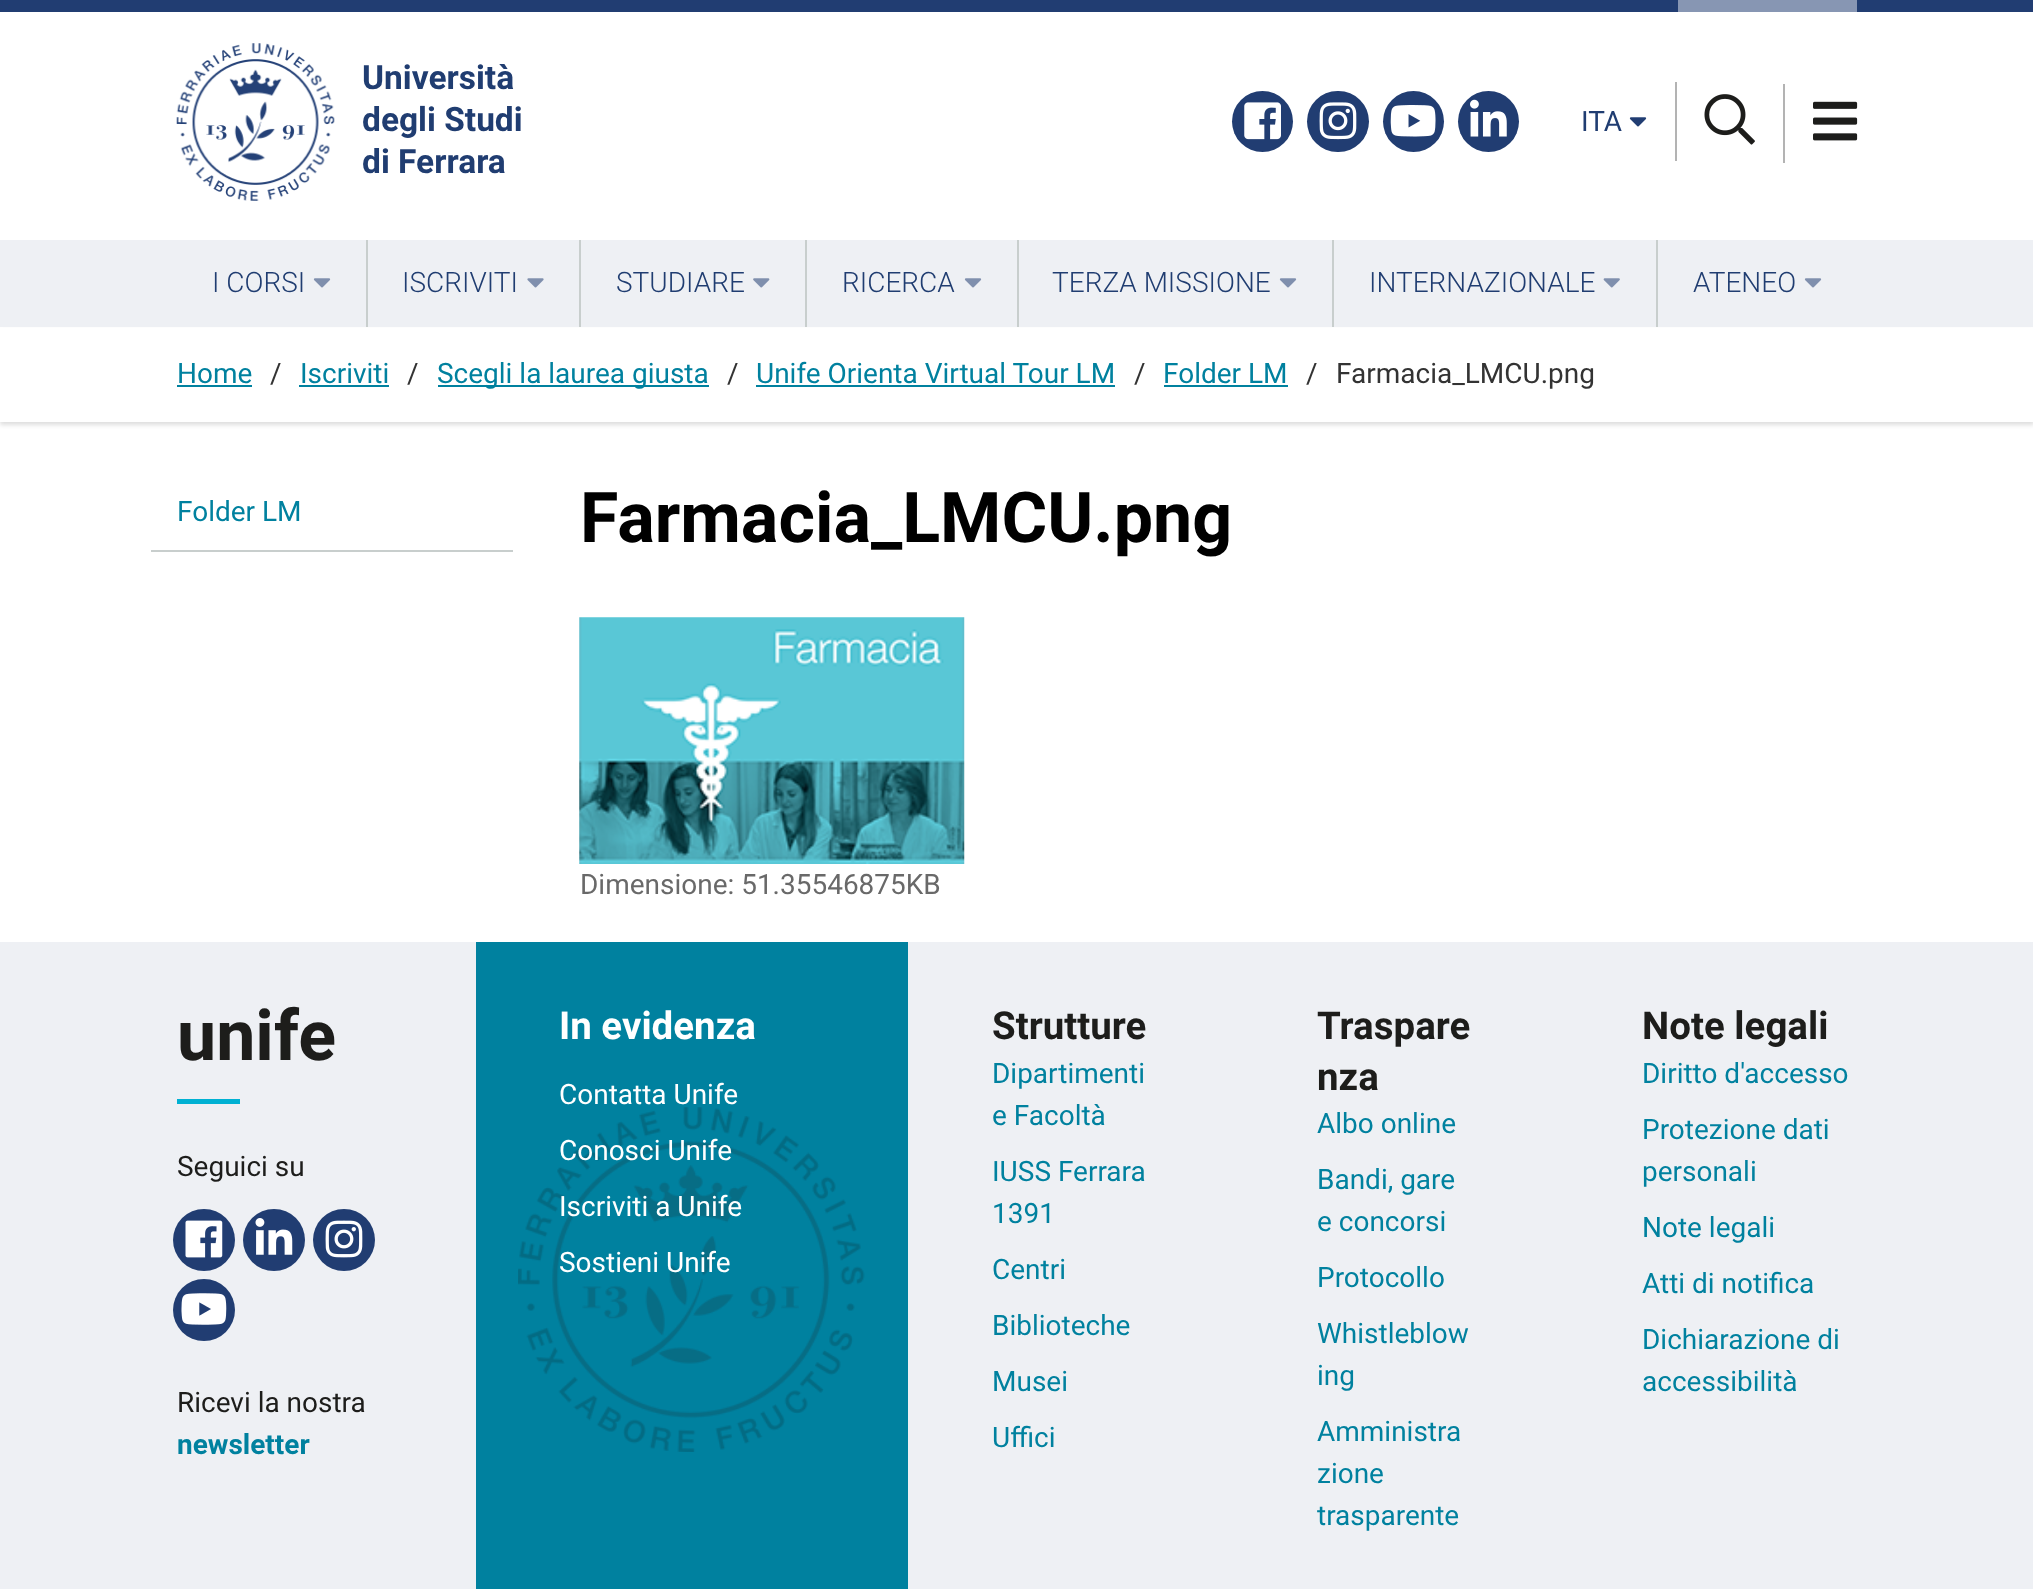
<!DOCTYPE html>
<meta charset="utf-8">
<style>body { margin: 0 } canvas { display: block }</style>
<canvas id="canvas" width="2033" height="1589"></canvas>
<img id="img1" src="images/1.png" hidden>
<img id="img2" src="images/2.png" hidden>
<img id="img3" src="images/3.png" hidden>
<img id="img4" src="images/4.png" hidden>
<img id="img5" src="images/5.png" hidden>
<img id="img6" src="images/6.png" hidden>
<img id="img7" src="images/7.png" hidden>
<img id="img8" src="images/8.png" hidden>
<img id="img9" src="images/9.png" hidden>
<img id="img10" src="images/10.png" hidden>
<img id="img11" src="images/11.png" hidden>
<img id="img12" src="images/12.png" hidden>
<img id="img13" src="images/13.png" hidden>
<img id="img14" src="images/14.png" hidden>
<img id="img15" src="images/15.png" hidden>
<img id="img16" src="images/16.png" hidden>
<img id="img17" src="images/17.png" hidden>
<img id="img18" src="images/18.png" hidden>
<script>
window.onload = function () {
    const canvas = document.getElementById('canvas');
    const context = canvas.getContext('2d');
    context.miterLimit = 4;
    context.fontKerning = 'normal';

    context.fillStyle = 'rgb(255, 255, 255)';
    context.fillRect(0, 0, 2033, 1589);
    context.fillStyle = 'rgb(33, 61, 114)';
    context.fillRect(0, 0, 2033, 12);
    context.fillStyle = 'rgb(135, 150, 179)';
    context.fillRect(1678, 0, 179, 12);
    context.drawImage(document.getElementById('img1'), 176, 43, 159, 158);
    context.fillStyle = 'rgb(33, 61, 114)';
    context.beginPath();
    context.arc(1262.5, 121.5, 30.5, 0, 2 * Math.PI);
    context.fill();
    context.drawImage(document.getElementById('img2'), 1244, 102, 37, 38);
    context.beginPath();
    context.roundRect(1307, 91, 62, 61, 30.5);
    context.fill();
    context.drawImage(document.getElementById('img3'), 1319, 102, 38, 38);
    context.beginPath();
    context.arc(1413.5, 121.5, 30.5, 0, 2 * Math.PI);
    context.fill();
    context.drawImage(document.getElementById('img4'), 1390, 105, 46, 32);
    context.beginPath();
    context.arc(1488.5, 121.5, 30.5, 0, 2 * Math.PI);
    context.fill();
    context.drawImage(document.getElementById('img5'), 1470, 99, 37, 38);
    context.drawImage(document.getElementById('img6'), 1629, 117, 18, 10);
    context.fillStyle = 'rgb(179, 179, 179)';
    context.fillRect(1675, 82, 2, 79);
    context.drawImage(document.getElementById('img7'), 1704, 94, 51, 51);
    context.fillRect(1783, 84, 2, 79);
    context.drawImage(document.getElementById('img8'), 1813, 101, 45, 40);
    context.fillStyle = 'rgba(0, 0, 0, 0.13)';
    context.filter = 'blur(2px)';
    context.beginPath();
    context.rect(0, 331, 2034, 94);
    context.fill();
    context.filter = 'none';
    context.fillStyle = 'rgb(238, 240, 244)';
    context.fillRect(0, 240, 2033, 87);
    context.fillStyle = 'rgb(200, 206, 205)';
    context.fillRect(366, 240, 2, 87);
    context.drawImage(document.getElementById('img9'), 313, 278, 18, 10);
    context.fillRect(579, 240, 2, 87);
    context.drawImage(document.getElementById('img10'), 527, 278, 17, 10);
    context.fillRect(805, 240, 2, 87);
    context.drawImage(document.getElementById('img11'), 753, 278, 17, 10);
    context.fillRect(1017, 240, 2, 87);
    context.drawImage(document.getElementById('img9'), 964, 278, 18, 10);
    context.fillRect(1332, 240, 2, 87);
    context.drawImage(document.getElementById('img9'), 1279, 278, 18, 10);
    context.fillRect(1656, 240, 2, 87);
    context.drawImage(document.getElementById('img12'), 1603, 278, 17, 10);
    context.drawImage(document.getElementById('img9'), 1804, 278, 18, 10);
    context.fillStyle = 'rgb(255, 255, 255)';
    context.fillRect(0, 328, 2033, 94);
    context.fillStyle = 'rgb(0, 129, 159)';
    context.fillRect(177, 385, 75, 2);
    context.fillRect(299, 385, 90, 2);
    context.fillRect(438, 385, 271, 2);
    context.fillRect(756, 385, 359, 2);
    context.fillRect(1164, 385, 124, 2);
    context.fillStyle = 'rgb(200, 206, 205)';
    context.fillRect(151, 550, 362, 2);
    context.drawImage(document.getElementById('img13'), 579, 617, 386, 247);
    context.fillStyle = 'rgb(238, 240, 244)';
    context.fillRect(0, 942, 2033, 647);
    context.fillStyle = 'rgb(0, 177, 211)';
    context.fillRect(177, 1099, 63, 5);
    context.fillStyle = 'rgb(33, 61, 114)';
    context.beginPath();
    context.arc(204, 1240, 31, 0, 2 * Math.PI);
    context.fill();
    context.drawImage(document.getElementById('img14'), 185, 1220, 38, 38);
    context.beginPath();
    context.arc(274, 1240, 31, 0, 2 * Math.PI);
    context.fill();
    context.drawImage(document.getElementById('img15'), 255, 1218, 38, 37);
    context.beginPath();
    context.arc(344, 1240, 31, 0, 2 * Math.PI);
    context.fill();
    context.drawImage(document.getElementById('img16'), 325, 1220, 38, 38);
    context.beginPath();
    context.arc(204, 1310, 31, 0, 2 * Math.PI);
    context.fill();
    context.drawImage(document.getElementById('img17'), 181, 1293, 46, 32);
    context.fillStyle = 'rgb(0, 129, 159)';
    context.fillRect(476, 942, 432, 647);
    context.drawImage(document.getElementById('img18'), 518, 1107, 347, 345);
    context.font = 'bold 33.5px Roboto';
    context.fillStyle = 'rgb(32, 61, 113)';
    context.fillText('Università', 362, 89);
    context.fillText('degli Studi', 362, 131);
    context.fillText('di Ferrara', 362, 173);
    context.font = '28px Roboto';
    context.fillText('ITA', 1581, 131);
    context.font = '300 28px Roboto';
    context.fillText('I CORSI', 212, 292);
    context.fillText('ISCRIVITI', 402, 292);
    context.fillText('STUDIARE', 616, 292);
    context.fillText('RICERCA', 842, 292);
    context.fillText('TERZA MISSIONE', 1052, 292);
    context.fillText('INTERNAZIONALE', 1369, 292);
    context.fillText('ATENEO', 1693, 292);
    context.font = '28px Roboto';
    context.fillStyle = 'rgb(0, 129, 159)';
    context.fillText('Home', 177, 383);
    context.fillStyle = 'rgb(51, 51, 51)';
    context.fillText('/', 270, 383);
    context.fillStyle = 'rgb(0, 129, 159)';
    context.fillText('Iscriviti', 300, 383);
    context.fillStyle = 'rgb(51, 51, 51)';
    context.fillText('/', 407, 383);
    context.fillStyle = 'rgb(0, 129, 159)';
    context.fillText('Scegli la laurea giusta', 437, 383);
    context.fillStyle = 'rgb(51, 51, 51)';
    context.fillText('/', 727, 383);
    context.fillStyle = 'rgb(0, 129, 159)';
    context.fillText('Unife Orienta Virtual Tour LM', 756, 383);
    context.fillStyle = 'rgb(51, 51, 51)';
    context.fillText('/', 1134, 383);
    context.fillStyle = 'rgb(0, 129, 159)';
    context.fillText('Folder LM', 1163, 383);
    context.fillStyle = 'rgb(51, 51, 51)';
    context.fillText('/', 1306, 383);
    context.fillText('Farmacia_LMCU.png', 1336, 383);
    context.fillStyle = 'rgb(0, 129, 159)';
    context.fillText('Folder LM', 177, 521);
    context.font = 'bold 70px Roboto';
    context.fillStyle = 'rgb(0, 0, 0)';
    context.fillText('Farmacia_LMCU.png', 580, 542);
    context.font = '28px Roboto';
    context.fillStyle = 'rgb(105, 105, 105)';
    context.fillText('Dimensione: 51.35546875KB', 580, 894);
    context.font = 'bold 70px Roboto';
    context.fillStyle = 'rgb(29, 29, 27)';
    context.fillText('unife', 177, 1060);
    context.font = '28px Roboto';
    context.fillText('Seguici su', 177, 1176);
    context.fillText('Ricevi la nostra', 177, 1412);
    context.font = 'bold 28px Roboto';
    context.fillStyle = 'rgb(0, 129, 159)';
    context.fillText('newsletter', 177, 1454);
    context.font = 'bold 38.5px Roboto';
    context.fillStyle = 'rgb(255, 255, 255)';
    context.fillText('In evidenza', 559, 1039);
    context.font = '28px Roboto';
    context.fillText('Contatta Unife', 559, 1104);
    context.fillText('Conosci Unife', 559, 1160);
    context.fillText('Iscriviti a Unife', 559, 1216);
    context.fillText('Sostieni Unife', 559, 1272);
    context.font = 'bold 38.5px Roboto';
    context.fillStyle = 'rgb(29, 29, 27)';
    context.fillText('Strutture', 992, 1039);
    context.font = '28px Roboto';
    context.fillStyle = 'rgb(0, 129, 159)';
    context.fillText('Dipartimenti', 992, 1083);
    context.fillText('e Facoltà', 992, 1125);
    context.fillText('IUSS Ferrara', 992, 1181);
    context.fillText('1391', 992, 1223);
    context.fillText('Centri', 992, 1279);
    context.fillText('Biblioteche', 992, 1335);
    context.fillText('Musei', 992, 1391);
    context.fillText('Uffici', 992, 1447);
    context.font = 'bold 38.5px Roboto';
    context.fillStyle = 'rgb(29, 29, 27)';
    context.fillText('Traspare', 1317, 1039);
    context.fillText('nza', 1317, 1090);
    context.font = '28px Roboto';
    context.fillStyle = 'rgb(0, 129, 159)';
    context.fillText('Albo online', 1317, 1133);
    context.fillText('Bandi, gare', 1317, 1189);
    context.fillText('e concorsi', 1317, 1231);
    context.fillText('Protocollo', 1317, 1287);
    context.fillText('Whistleblow', 1317, 1343);
    context.fillText('ing', 1317, 1385);
    context.fillText('Amministra', 1317, 1441);
    context.fillText('zione', 1317, 1483);
    context.fillText('trasparente', 1317, 1525);
    context.font = 'bold 38.5px Roboto';
    context.fillStyle = 'rgb(29, 29, 27)';
    context.fillText('Note legali', 1642, 1039);
    context.font = '28px Roboto';
    context.fillStyle = 'rgb(0, 129, 159)';
    context.fillText('Diritto d\'accesso', 1642, 1083);
    context.fillText('Protezione dati', 1642, 1139);
    context.fillText('personali', 1642, 1181);
    context.fillText('Note legali', 1642, 1237);
    context.fillText('Atti di notifica', 1642, 1293);
    context.fillText('Dichiarazione di', 1642, 1349);
    context.fillText('accessibilità', 1642, 1391);
};
</script>
